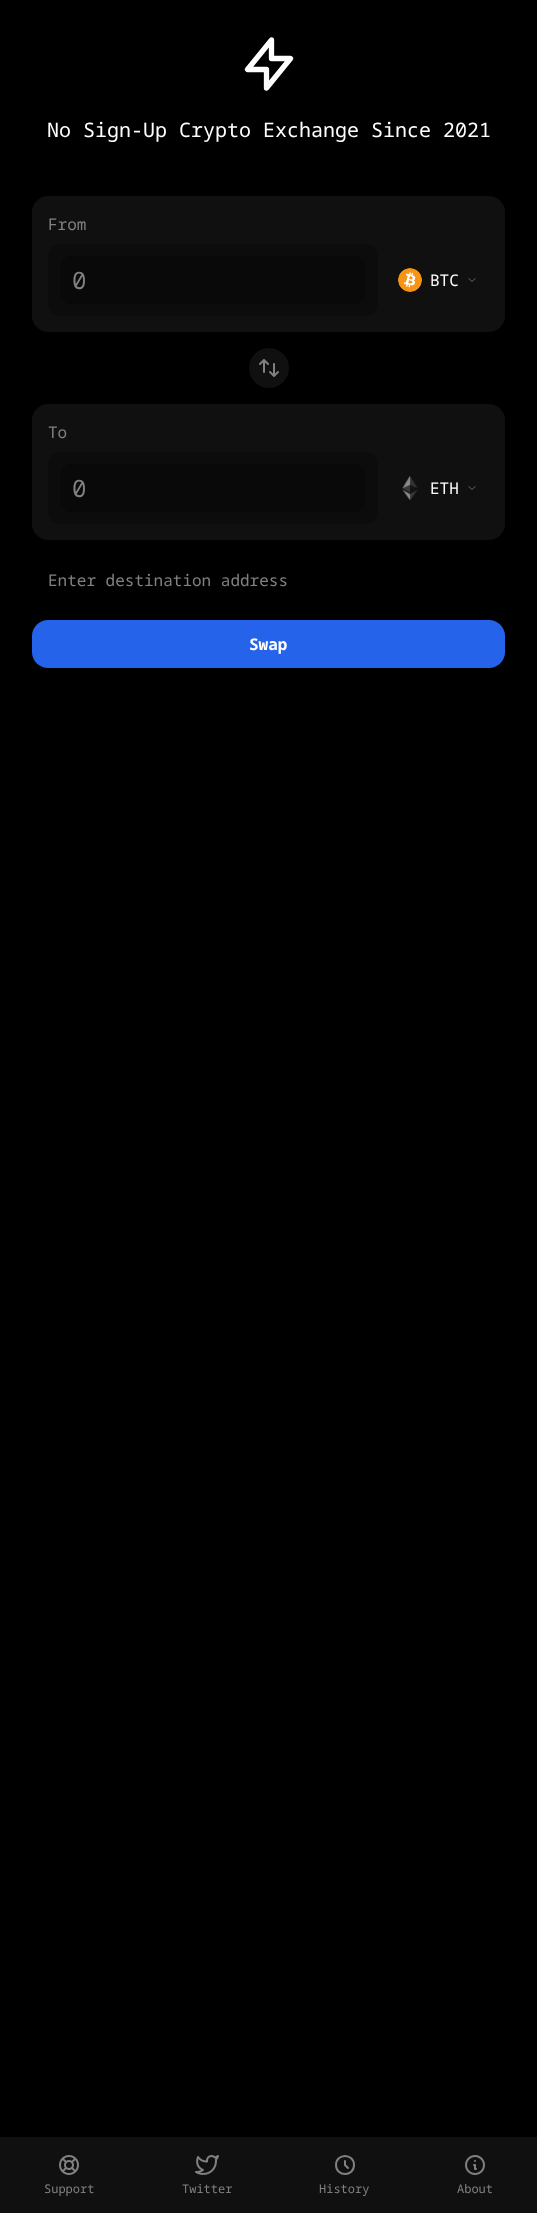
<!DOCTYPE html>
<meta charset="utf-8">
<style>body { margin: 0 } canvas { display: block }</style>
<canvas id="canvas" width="537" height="2213"></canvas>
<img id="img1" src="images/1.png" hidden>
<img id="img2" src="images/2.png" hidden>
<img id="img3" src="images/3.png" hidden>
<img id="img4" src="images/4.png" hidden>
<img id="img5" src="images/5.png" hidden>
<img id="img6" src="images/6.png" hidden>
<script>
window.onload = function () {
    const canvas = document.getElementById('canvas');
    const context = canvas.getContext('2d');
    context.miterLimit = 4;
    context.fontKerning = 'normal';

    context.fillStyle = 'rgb(0, 0, 0)';
    context.fillRect(0, 0, 537, 2213);
    context.beginPath();
    context.moveTo(271.5, 58.5);
    context.lineTo(271.5, 40);
    context.lineTo(247.5, 69.5);
    context.lineTo(266.5, 69.5);
    context.lineTo(266.5, 88);
    context.lineTo(290.5, 58.5);
    context.closePath();
    context.strokeStyle = 'rgb(255, 255, 255)';
    context.lineWidth = 5.3;
    context.lineCap = 'round';
    context.lineJoin = 'round';
    context.stroke();
    context.fillStyle = 'rgb(16, 16, 16)';
    context.beginPath();
    context.roundRect(32, 196, 473, 136, 16);
    context.fill();
    context.fillStyle = 'rgb(12, 12, 12)';
    context.beginPath();
    context.roundRect(48, 244, 330, 72, 12);
    context.fill();
    context.fillStyle = 'rgb(9, 9, 9)';
    context.beginPath();
    context.roundRect(60, 256, 306, 48, 12);
    context.fill();
    context.drawImage(document.getElementById('img1'), 398, 268, 24, 24);
    context.beginPath();
    context.moveTo(475, 278.5);
    context.lineTo(472, 281.5);
    context.lineTo(469, 278.5);
    context.strokeStyle = 'rgb(129, 129, 129)';
    context.lineWidth = 0.8;
    context.stroke();
    context.fillStyle = 'rgb(16, 16, 16)';
    context.beginPath();
    context.arc(269, 368, 20, 0, 2 * Math.PI);
    context.fill();
    context.drawImage(document.getElementById('img2'), 259, 359, 20, 18);
    context.beginPath();
    context.roundRect(32, 404, 473, 136, 16);
    context.fill();
    context.fillStyle = 'rgb(12, 12, 12)';
    context.beginPath();
    context.roundRect(48, 452, 330, 72, 12);
    context.fill();
    context.fillStyle = 'rgb(9, 9, 9)';
    context.beginPath();
    context.roundRect(60, 464, 306, 48, 12);
    context.fill();
    context.drawImage(document.getElementById('img3'), 402, 476, 16, 24);
    context.beginPath();
    context.moveTo(475, 486.5);
    context.lineTo(472, 489.5);
    context.lineTo(469, 486.5);
    context.stroke();
    context.fillStyle = 'rgb(37, 99, 235)';
    context.beginPath();
    context.roundRect(32, 620, 473, 48, 16);
    context.fill();
    context.fillStyle = 'rgb(16, 16, 16)';
    context.fillRect(0, 2137, 537, 76);
    context.drawImage(document.getElementById('img4'), 59, 2155, 20, 20);
    context.drawImage(document.getElementById('img5'), 195, 2155, 24, 20);
    context.beginPath();
    context.moveTo(345, 2161);
    context.lineTo(345, 2165);
    context.lineTo(348, 2168);
    context.moveTo(354, 2165);
    context.bezierCurveTo(354, 2177, 336, 2177, 336, 2165);
    context.bezierCurveTo(336, 2153, 354, 2153, 354, 2165);
    context.closePath();
    context.lineWidth = 2;
    context.stroke();
    context.drawImage(document.getElementById('img6'), 465, 2155, 20, 20);
    context.font = '20px Noto Sans Mono';
    context.fillStyle = 'rgb(255, 255, 255)';
    context.fillText('No Sign-Up Crypto Exchange Since 2021', 47, 137);
    context.font = '16px Noto Sans Mono';
    context.fillStyle = 'rgb(129, 129, 129)';
    context.fillText('From', 48, 230);
    context.font = '24px Noto Sans Mono';
    context.fillText('0', 72, 289);
    context.font = '16px Noto Sans Mono';
    context.fillStyle = 'rgb(255, 255, 255)';
    context.fillText('BTC', 430, 286);
    context.fillStyle = 'rgb(129, 129, 129)';
    context.fillText('To', 48, 438);
    context.font = '24px Noto Sans Mono';
    context.fillText('0', 72, 497);
    context.font = '16px Noto Sans Mono';
    context.fillStyle = 'rgb(255, 255, 255)';
    context.fillText('ETH', 430, 494);
    context.fillStyle = 'rgb(129, 129, 129)';
    context.fillText('Enter destination address', 48, 586);
    context.font = 'bold 16px Noto Sans Mono';
    context.fillStyle = 'rgb(255, 255, 255)';
    context.fillText('Swap', 249, 650);
    context.font = '12px Noto Sans Mono';
    context.fillStyle = 'rgb(129, 129, 129)';
    context.fillText('Support', 44, 2193);
    context.fillText('Twitter', 182, 2193);
    context.fillText('History', 319, 2193);
    context.fillText('About', 457, 2193);
};
</script>
